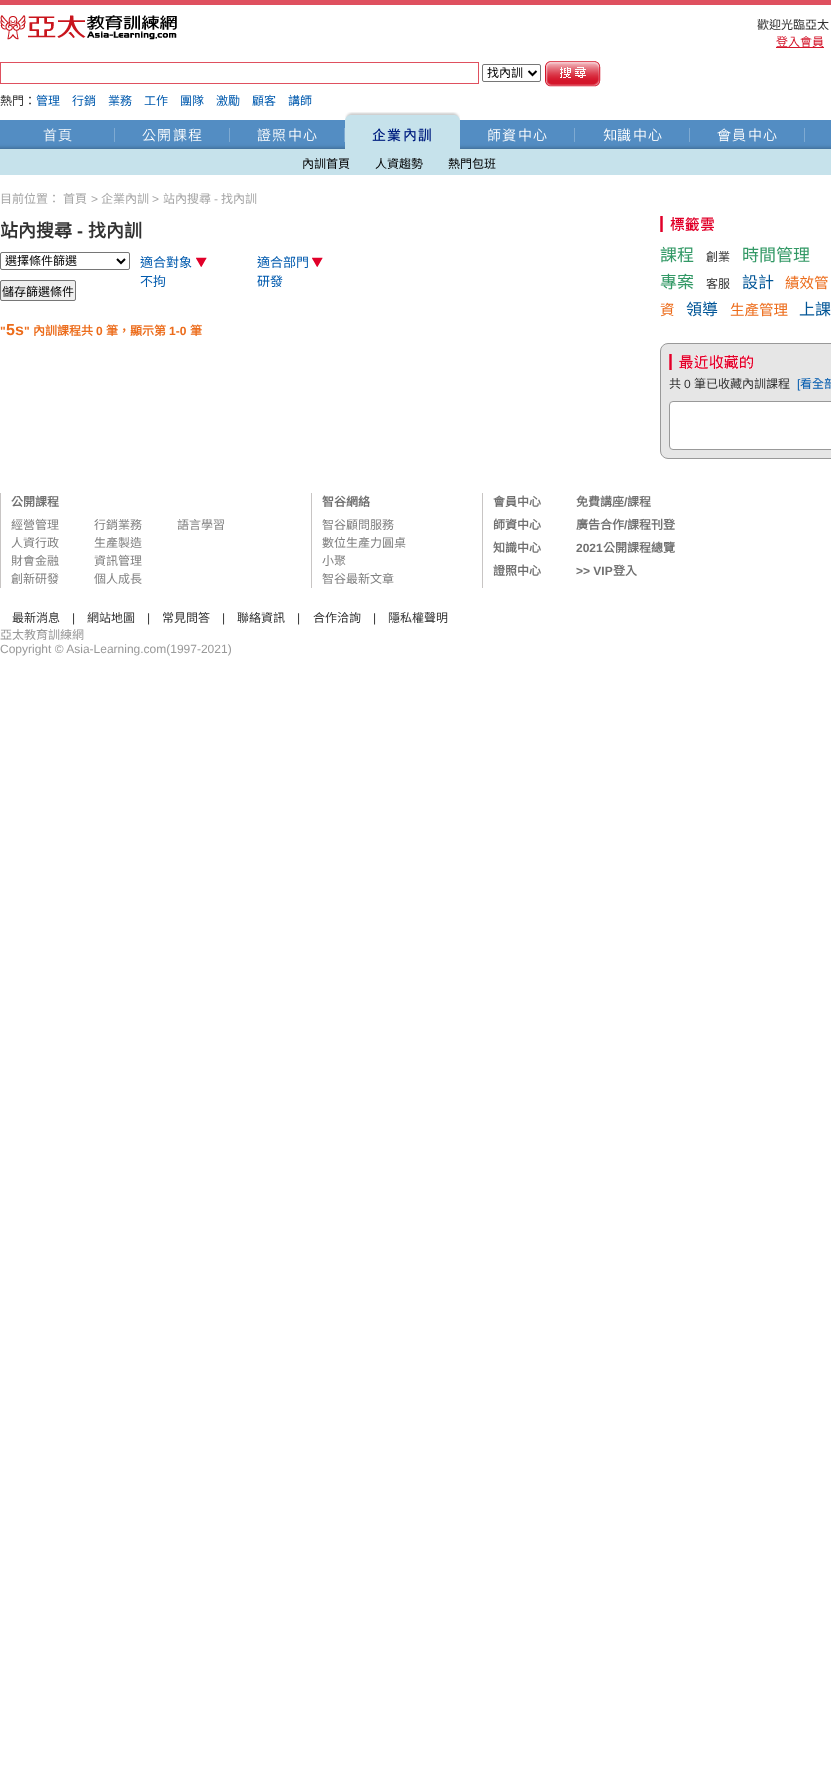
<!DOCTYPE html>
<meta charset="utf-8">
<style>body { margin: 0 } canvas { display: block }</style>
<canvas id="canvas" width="831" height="1792"></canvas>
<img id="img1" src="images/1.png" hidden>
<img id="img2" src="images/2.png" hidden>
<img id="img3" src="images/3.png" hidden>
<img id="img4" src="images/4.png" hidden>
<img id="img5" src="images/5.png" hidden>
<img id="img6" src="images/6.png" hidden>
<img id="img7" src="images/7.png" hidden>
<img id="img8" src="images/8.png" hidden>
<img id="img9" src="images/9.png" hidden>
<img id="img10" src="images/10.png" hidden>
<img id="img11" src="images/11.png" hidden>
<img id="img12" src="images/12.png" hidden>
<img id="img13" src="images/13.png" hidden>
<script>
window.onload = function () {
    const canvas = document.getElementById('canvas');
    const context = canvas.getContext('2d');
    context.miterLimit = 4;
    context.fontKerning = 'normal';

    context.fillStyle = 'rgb(255, 255, 255)';
    context.fillRect(0, 0, 831, 1792);
    context.fillStyle = 'rgb(223, 80, 95)';
    context.fillRect(0, 0, 831, 5);
    context.drawImage(document.getElementById('img1'), 0, 15, 177, 25);
    context.fillStyle = 'rgb(212, 21, 42)';
    context.fillRect(776, 47, 48, 1);
    context.strokeStyle = 'rgb(223, 80, 95)';
    context.strokeRect(0.5, 62.5, 478, 21);
    context.beginPath();
    context.roundRect(482.5, 64.5, 58, 17, 1.5);
    context.strokeStyle = 'rgb(118, 118, 118)';
    context.stroke();
    context.beginPath();
    context.moveTo(528.5, 71);
    context.lineTo(532.5, 75);
    context.lineTo(536.5, 71);
    context.strokeStyle = 'rgb(0, 0, 0)';
    context.lineWidth = 2;
    context.stroke();
    context.drawImage(document.getElementById('img2'), 545, 61, 56, 26);
    context.drawImage(document.getElementById('img3'), 0, 120, 831, 29);
    context.drawImage(document.getElementById('img4'), 43, 128, 72, 14);
    context.drawImage(document.getElementById('img5'), 142, 128, 88, 14);
    context.drawImage(document.getElementById('img6'), 257, 128, 88, 14);
    context.drawImage(document.getElementById('img7'), 345, 112, 115, 37);
    context.drawImage(document.getElementById('img8'), 488, 128, 87, 14);
    context.drawImage(document.getElementById('img9'), 603, 128, 87, 14);
    context.drawImage(document.getElementById('img10'), 717, 128, 88, 14);
    context.fillStyle = 'rgb(198, 226, 235)';
    context.fillRect(0, 149, 831, 26);
    context.beginPath();
    context.roundRect(0.5, 252.5, 129, 17, 1.5);
    context.strokeStyle = 'rgb(118, 118, 118)';
    context.lineWidth = 1;
    context.stroke();
    context.beginPath();
    context.moveTo(117, 259);
    context.lineTo(121, 263);
    context.lineTo(125, 259);
    context.strokeStyle = 'rgb(0, 0, 0)';
    context.lineWidth = 2;
    context.stroke();
    context.fillStyle = 'rgb(239, 239, 239)';
    context.beginPath();
    context.roundRect(0.5, 280.5, 75, 20, 1.5);
    context.fill();
    context.strokeStyle = 'rgb(118, 118, 118)';
    context.lineWidth = 1;
    context.stroke();
    context.drawImage(document.getElementById('img11'), 196, 257, 11, 10);
    context.drawImage(document.getElementById('img11'), 312, 257, 11, 10);
    context.drawImage(document.getElementById('img12'), 660, 216, 54, 16);
    context.fillStyle = 'rgb(230, 230, 230)';
    context.beginPath();
    context.roundRect(660.5, 343.5, 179, 115, 7.5);
    context.fill();
    context.strokeStyle = 'rgb(153, 153, 153)';
    context.stroke();
    context.drawImage(document.getElementById('img13'), 669, 354, 84, 16);
    context.fillStyle = 'rgb(255, 255, 255)';
    context.beginPath();
    context.roundRect(669.5, 401.5, 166, 48, 3.5);
    context.fill();
    context.stroke();
    context.fillStyle = 'rgb(200, 197, 196)';
    context.fillRect(0, 493, 1, 95);
    context.fillRect(311, 493, 1, 95);
    context.fillRect(482, 493, 1, 95);
    context.font = '12px Noto Sans CJK TC';
    context.fillStyle = 'rgb(49, 49, 49)';
    context.fillText('歡迎光臨亞太', 757, 29);
    context.fillStyle = 'rgb(212, 21, 42)';
    context.fillText('登入會員', 776, 46);
    context.fillStyle = 'rgb(0, 0, 0)';
    context.fillText('找內訓', 487, 77);
    context.fillStyle = 'rgb(49, 49, 49)';
    context.fillText('熱門：', 0, 105);
    context.fillStyle = 'rgb(0, 90, 174)';
    context.fillText('管理', 36, 105);
    context.fillText('行銷', 72, 105);
    context.fillText('業務', 108, 105);
    context.fillText('工作', 144, 105);
    context.fillText('團隊', 180, 105);
    context.fillText('激勵', 216, 105);
    context.fillText('顧客', 252, 105);
    context.fillText('講師', 288, 105);
    context.fillStyle = 'rgb(0, 0, 0)';
    context.fillText('內訓首頁', 302, 168);
    context.fillText('人資趨勢', 375, 168);
    context.fillText('熱門包班', 448, 168);
    context.fillStyle = 'rgb(166, 166, 166)';
    context.fillText('目前位置：', 0, 203);
    context.fillText('首頁', 63, 203);
    context.font = '12px Liberation Sans';
    context.fillText('>', 91, 203);
    context.font = '12px Noto Sans CJK TC';
    context.fillText('企業內訓', 101, 203);
    context.font = '12px Liberation Sans';
    context.fillText('>', 152, 203);
    context.font = '12px Noto Sans CJK TC';
    context.fillText('站內搜尋', 163, 203);
    context.font = '12px Liberation Sans';
    context.fillText('-', 214, 203);
    context.font = '12px Noto Sans CJK TC';
    context.fillText('找內訓', 221, 203);
    context.font = 'bold 18px Noto Sans CJK TC';
    context.fillStyle = 'rgb(49, 49, 49)';
    context.fillText('站內搜尋', 0, 237);
    context.font = 'bold 18px Liberation Sans';
    context.fillText('-', 77, 237);
    context.font = 'bold 18px Noto Sans CJK TC';
    context.fillText('找內訓', 88, 237);
    context.font = '12px Noto Sans CJK TC';
    context.fillStyle = 'rgb(0, 0, 0)';
    context.fillText('選擇條件篩選', 5, 265);
    context.fillText('儲存篩選條件', 2, 296);
    context.font = '13px Noto Sans CJK TC';
    context.fillStyle = 'rgb(0, 90, 174)';
    context.fillText('適合對象', 140, 267);
    context.fillText('不拘', 140, 286);
    context.fillText('適合部門', 257, 267);
    context.fillText('研發', 257, 286);
    context.font = 'bold 12px Liberation Sans';
    context.fillStyle = 'rgb(236, 108, 27)';
    context.fillText('"', 0, 335);
    context.font = 'bold 16px Liberation Sans';
    context.fillText('5s', 6, 335);
    context.font = 'bold 12px Liberation Sans';
    context.fillText('"', 24, 335);
    context.font = 'bold 12px Noto Sans CJK TC';
    context.fillText('內訓課程共', 33, 335);
    context.font = 'bold 12px Liberation Sans';
    context.fillText('0', 96, 335);
    context.font = 'bold 12px Noto Sans CJK TC';
    context.fillText('筆，顯示第', 106, 335);
    context.font = 'bold 12px Liberation Sans';
    context.fillText('1-0', 169, 335);
    context.font = 'bold 12px Noto Sans CJK TC';
    context.fillText('筆', 190, 335);
    context.font = '17px Noto Sans CJK TC';
    context.fillStyle = 'rgb(51, 153, 102)';
    context.fillText('課程', 660, 261);
    context.font = '12px Noto Sans CJK TC';
    context.fillStyle = 'rgb(49, 49, 49)';
    context.fillText('創業', 706, 261);
    context.font = '17px Noto Sans CJK TC';
    context.fillStyle = 'rgb(51, 153, 102)';
    context.fillText('時間管理', 742, 261);
    context.fillText('專案', 660, 288);
    context.font = '12px Noto Sans CJK TC';
    context.fillStyle = 'rgb(49, 49, 49)';
    context.fillText('客服', 706, 288);
    context.font = '16px Noto Sans CJK TC';
    context.fillStyle = 'rgb(2, 86, 151)';
    context.fillText('設計', 742, 288);
    context.font = '14.5px Noto Sans CJK TC';
    context.fillStyle = 'rgb(236, 108, 27)';
    context.fillText('績效管', 785, 288);
    context.fillText('資', 660, 315);
    context.font = '16px Noto Sans CJK TC';
    context.fillStyle = 'rgb(2, 86, 151)';
    context.fillText('領導', 686, 315);
    context.font = '14.5px Noto Sans CJK TC';
    context.fillStyle = 'rgb(236, 108, 27)';
    context.fillText('生產管理', 730, 315);
    context.font = '16px Noto Sans CJK TC';
    context.fillStyle = 'rgb(2, 86, 151)';
    context.fillText('上課', 799, 315);
    context.font = '12px Noto Sans CJK TC';
    context.fillStyle = 'rgb(49, 49, 49)';
    context.fillText('共', 669, 388);
    context.font = '12px Liberation Sans';
    context.fillText('0', 684, 388);
    context.font = '12px Noto Sans CJK TC';
    context.fillText('筆已收藏內訓課程', 694, 388);
    context.font = '12px Liberation Sans';
    context.fillStyle = 'rgb(0, 90, 174)';
    context.fillText('[', 797, 388);
    context.font = '12px Noto Sans CJK TC';
    context.fillText('看全部', 800, 388);
    context.font = 'bold 12px Noto Sans CJK TC';
    context.fillStyle = 'rgb(112, 112, 112)';
    context.fillText('公開課程', 11, 506);
    context.font = '12px Noto Sans CJK TC';
    context.fillStyle = 'rgb(128, 128, 128)';
    context.fillText('經營管理', 11, 529);
    context.fillText('人資行政', 11, 547);
    context.fillText('財會金融', 11, 565);
    context.fillText('創新研發', 11, 583);
    context.fillText('行銷業務', 94, 529);
    context.fillText('生產製造', 94, 547);
    context.fillText('資訊管理', 94, 565);
    context.fillText('個人成長', 94, 583);
    context.fillText('語言學習', 177, 529);
    context.font = 'bold 12px Noto Sans CJK TC';
    context.fillStyle = 'rgb(112, 112, 112)';
    context.fillText('智谷網絡', 322, 506);
    context.font = '12px Noto Sans CJK TC';
    context.fillStyle = 'rgb(128, 128, 128)';
    context.fillText('智谷顧問服務', 322, 529);
    context.fillText('數位生產力圓桌', 322, 547);
    context.fillText('小聚', 322, 565);
    context.fillText('智谷最新文章', 322, 583);
    context.font = 'bold 12px Noto Sans CJK TC';
    context.fillStyle = 'rgb(112, 112, 112)';
    context.fillText('會員中心', 493, 506);
    context.fillText('師資中心', 493, 529);
    context.fillText('知識中心', 493, 552);
    context.fillText('證照中心', 493, 575);
    context.fillText('免費講座', 576, 506);
    context.font = 'bold 12px Liberation Sans';
    context.fillText('/', 624, 506);
    context.font = 'bold 12px Noto Sans CJK TC';
    context.fillText('課程', 627, 506);
    context.fillText('廣告合作', 576, 529);
    context.font = 'bold 12px Liberation Sans';
    context.fillText('/', 624, 529);
    context.font = 'bold 12px Noto Sans CJK TC';
    context.fillText('課程刊登', 627, 529);
    context.font = 'bold 12px Liberation Sans';
    context.fillText('2021', 576, 552);
    context.font = 'bold 12px Noto Sans CJK TC';
    context.fillText('公開課程總覽', 603, 552);
    context.font = 'bold 12px Liberation Sans';
    context.fillText('>> VIP', 576, 575);
    context.font = 'bold 12px Noto Sans CJK TC';
    context.fillText('登入', 613, 575);
    context.font = '12px Noto Sans CJK TC';
    context.fillStyle = 'rgb(49, 49, 49)';
    context.fillText('最新消息', 12, 622);
    context.font = '12px Liberation Sans';
    context.fillText('|', 72, 622);
    context.font = '12px Noto Sans CJK TC';
    context.fillText('網站地圖', 87, 622);
    context.font = '12px Liberation Sans';
    context.fillText('|', 147, 622);
    context.font = '12px Noto Sans CJK TC';
    context.fillText('常見問答', 162, 622);
    context.font = '12px Liberation Sans';
    context.fillText('|', 222, 622);
    context.font = '12px Noto Sans CJK TC';
    context.fillText('聯絡資訊', 237, 622);
    context.font = '12px Liberation Sans';
    context.fillText('|', 297, 622);
    context.font = '12px Noto Sans CJK TC';
    context.fillText('合作洽詢', 313, 622);
    context.font = '12px Liberation Sans';
    context.fillText('|', 373, 622);
    context.font = '12px Noto Sans CJK TC';
    context.fillText('隱私權聲明', 388, 622);
    context.fillStyle = 'rgb(153, 153, 153)';
    context.fillText('亞太教育訓練網', 0, 639);
    context.font = '12px Liberation Sans';
    context.fillText('Copyright © Asia-Learning.com(1997-2021)', 0, 653);
};
</script>
